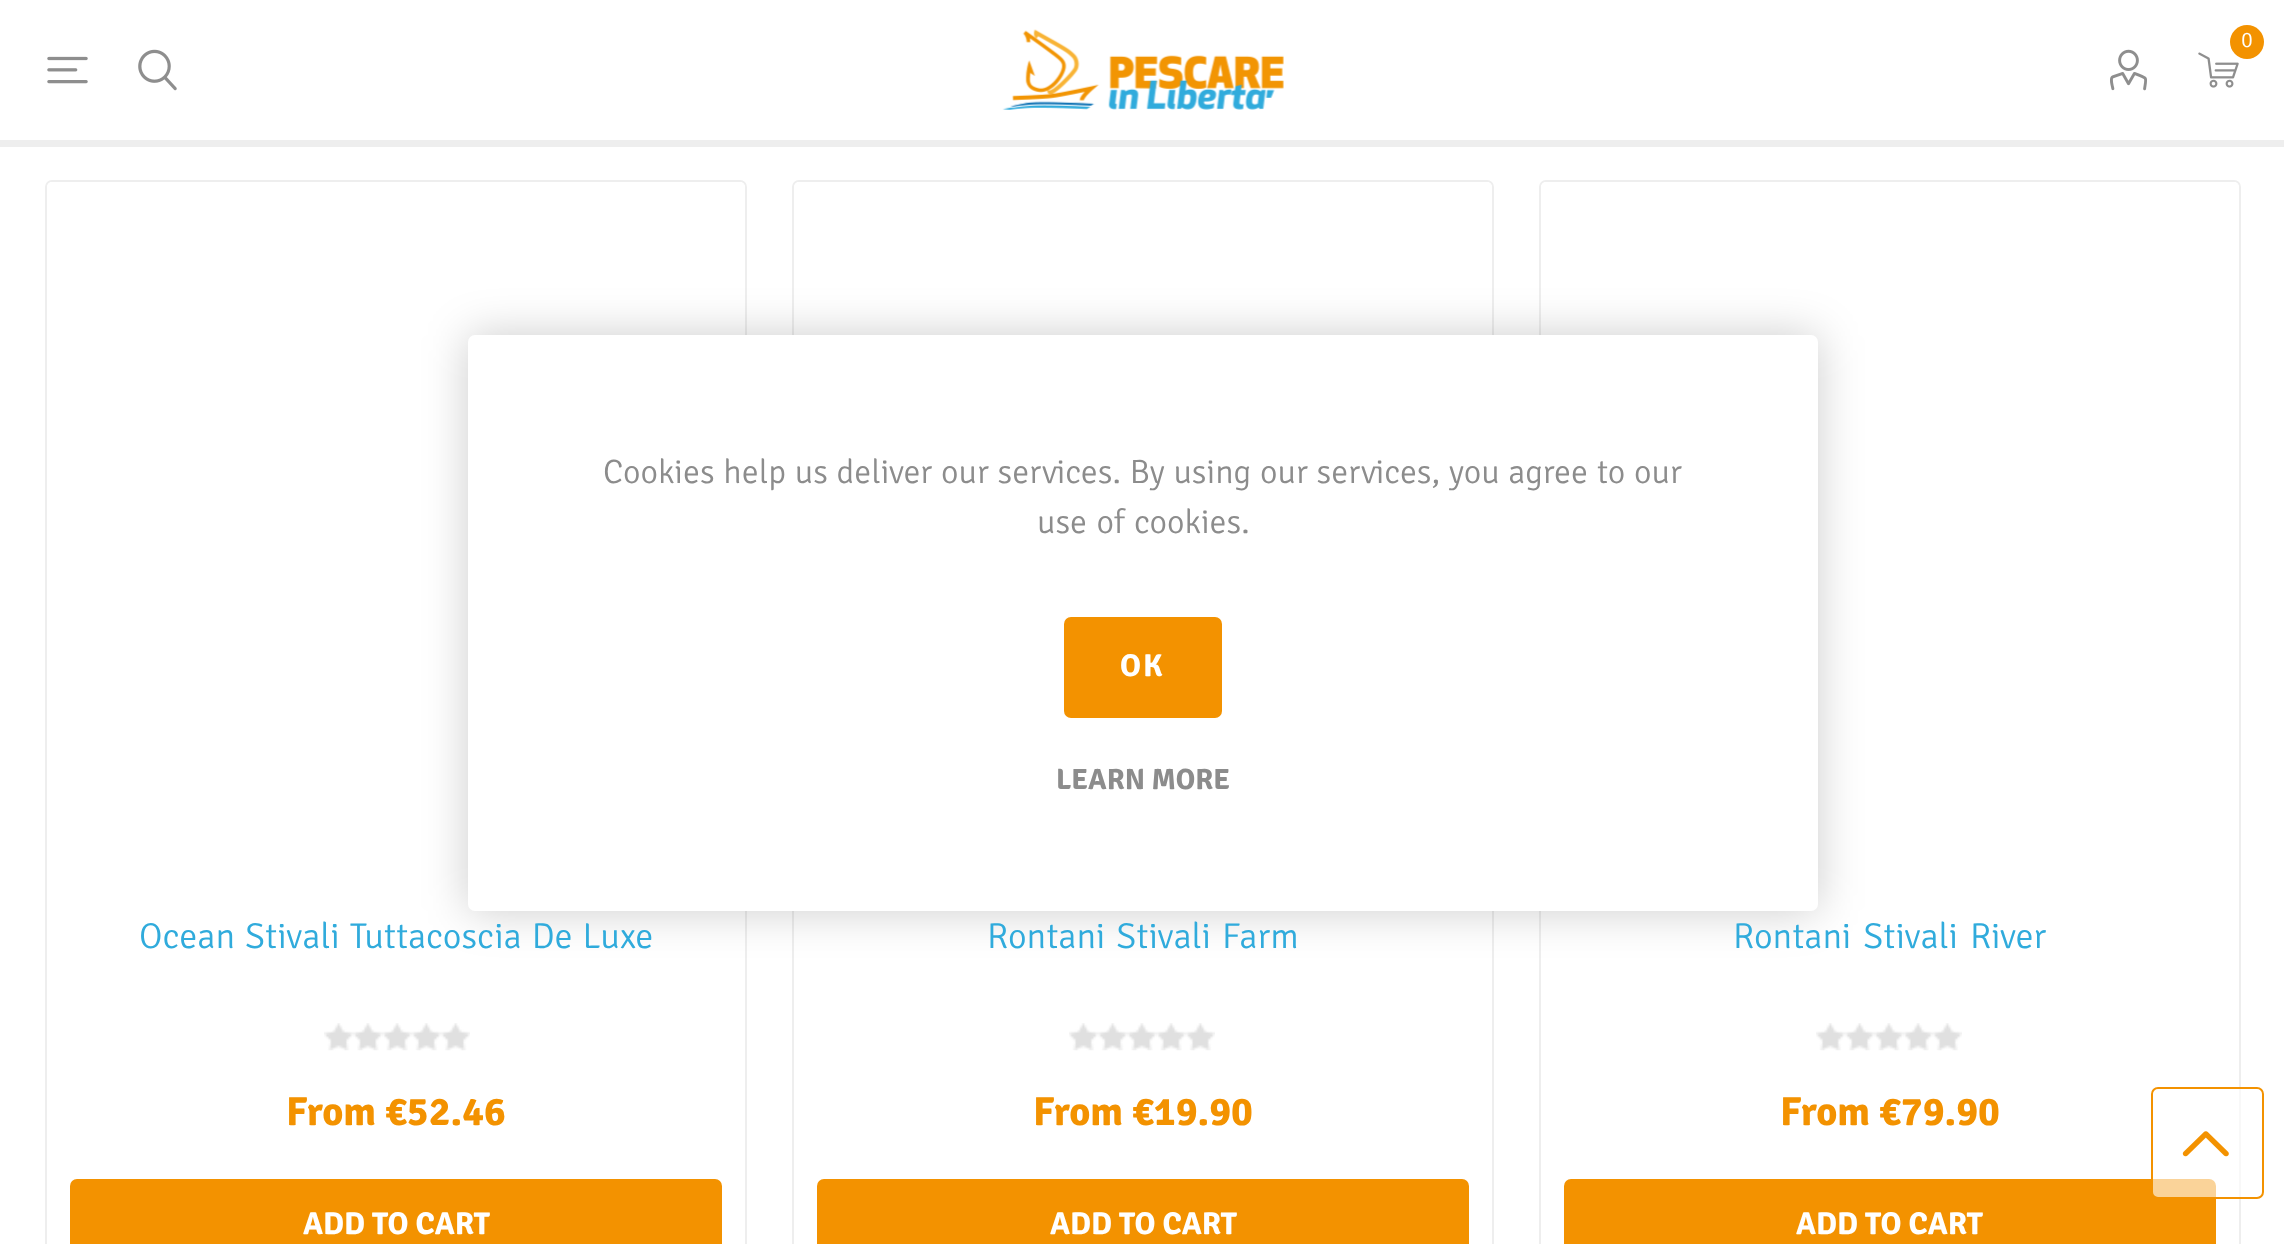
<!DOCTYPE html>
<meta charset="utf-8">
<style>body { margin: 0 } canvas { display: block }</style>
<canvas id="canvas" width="2284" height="1244"></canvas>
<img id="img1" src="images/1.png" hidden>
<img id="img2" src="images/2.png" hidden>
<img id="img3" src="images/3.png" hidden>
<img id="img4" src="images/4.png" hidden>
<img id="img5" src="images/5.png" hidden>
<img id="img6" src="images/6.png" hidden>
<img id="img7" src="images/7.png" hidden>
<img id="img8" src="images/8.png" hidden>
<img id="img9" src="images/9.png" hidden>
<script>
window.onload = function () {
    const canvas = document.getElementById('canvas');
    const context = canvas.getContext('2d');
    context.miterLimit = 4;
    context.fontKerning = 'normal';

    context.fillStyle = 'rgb(255, 255, 255)';
    context.fillRect(0, 0, 2284, 1244);
    context.fillStyle = 'rgb(238, 238, 238)';
    context.fillRect(0, 140, 2284, 7);
    context.drawImage(document.getElementById('img1'), 1002, 29, 282, 81);
    context.drawImage(document.getElementById('img2'), 2198, 52, 41, 36);
    context.fillStyle = 'rgb(243, 146, 0)';
    context.beginPath();
    context.arc(2247, 42, 17, 0, 2 * Math.PI);
    context.fill();
    context.drawImage(document.getElementById('img3'), 47, 56, 41, 28);
    context.drawImage(document.getElementById('img4'), 138, 49, 39, 42);
    context.drawImage(document.getElementById('img5'), 2110, 49, 37, 42);
    context.beginPath();
    context.roundRect(46, 181, 700, 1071, 6);
    context.strokeStyle = 'rgb(238, 238, 238)';
    context.lineWidth = 2;
    context.stroke();
    context.fillStyle = 'rgb(255, 255, 255)';
    context.beginPath();
    context.roundRect(47, 182, 698, 698, [5, 5, 0, 0]);
    context.fill();
    context.drawImage(document.getElementById('img6'), 324, 1023, 146, 28);
    context.fillStyle = 'rgb(243, 146, 0)';
    context.beginPath();
    context.roundRect(70, 1179, 652, 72, 7);
    context.fill();
    context.beginPath();
    context.roundRect(793, 181, 700, 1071, 6);
    context.stroke();
    context.fillStyle = 'rgb(255, 255, 255)';
    context.beginPath();
    context.roundRect(794, 182, 698, 698, [5, 5, 0, 0]);
    context.fill();
    context.drawImage(document.getElementById('img7'), 1069, 1023, 146, 28);
    context.fillStyle = 'rgb(243, 146, 0)';
    context.beginPath();
    context.roundRect(817, 1179, 652, 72, 7);
    context.fill();
    context.beginPath();
    context.roundRect(1540, 181, 700, 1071, 6);
    context.stroke();
    context.fillStyle = 'rgb(255, 255, 255)';
    context.beginPath();
    context.roundRect(1541, 182, 698, 698, [5, 5, 0, 0]);
    context.fill();
    context.drawImage(document.getElementById('img8'), 1816, 1023, 146, 28);
    context.fillStyle = 'rgb(243, 146, 0)';
    context.beginPath();
    context.roundRect(1564, 1179, 652, 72, 7);
    context.fill();
    context.fillStyle = 'rgba(0, 0, 0, 0.2)';
    context.filter = 'blur(22.5px)';
    context.beginPath();
    context.roundRect(468, 335, 1350, 576, 7);
    context.fill();
    context.filter = 'none';
    context.fillStyle = 'rgb(255, 255, 255)';
    context.beginPath();
    context.roundRect(468, 335, 1350, 576, 7);
    context.fill();
    context.fillStyle = 'rgb(243, 146, 0)';
    context.beginPath();
    context.roundRect(1064, 617, 158, 101, 7);
    context.fill();
    context.fillStyle = 'rgba(255, 255, 255, 0.6)';
    context.beginPath();
    context.roundRect(2152, 1088, 111, 110, 6);
    context.fill();
    context.strokeStyle = 'rgb(243, 146, 0)';
    context.stroke();
    context.drawImage(document.getElementById('img9'), 2182, 1131, 47, 26);
    context.font = '300 22px Signika';
    context.fillStyle = 'rgb(255, 255, 255)';
    context.fillText('0', 2241, 47);
    context.wordSpacing = '2px';
    context.font = '300 36px Signika';
    context.fillStyle = 'rgb(48, 171, 220)';
    context.fillText('Ocean Stivali Tuttacoscia De Luxe', 139, 948);
    context.wordSpacing = '0px';
    context.font = 'bold 40.5px Signika';
    context.fillStyle = 'rgb(243, 146, 0)';
    context.fillText('From €52.46', 286, 1125);
    context.font = 'bold 31.5px Signika';
    context.fillStyle = 'rgb(255, 255, 255)';
    context.fillText('ADD TO CART', 303, 1234);
    context.wordSpacing = '3px';
    context.font = '300 36px Signika';
    context.fillStyle = 'rgb(48, 171, 220)';
    context.fillText('Rontani Stivali Farm', 987, 948);
    context.wordSpacing = '0px';
    context.font = 'bold 40.5px Signika';
    context.fillStyle = 'rgb(243, 146, 0)';
    context.fillText('From €19.90', 1033, 1125);
    context.font = 'bold 31.5px Signika';
    context.fillStyle = 'rgb(255, 255, 255)';
    context.fillText('ADD TO CART', 1050, 1234);
    context.wordSpacing = '4px';
    context.font = '300 36px Signika';
    context.fillStyle = 'rgb(48, 171, 220)';
    context.fillText('Rontani Stivali River', 1733, 948);
    context.wordSpacing = '0px';
    context.font = 'bold 40.5px Signika';
    context.fillStyle = 'rgb(243, 146, 0)';
    context.fillText('From €79.90', 1780, 1125);
    context.font = 'bold 31.5px Signika';
    context.fillStyle = 'rgb(255, 255, 255)';
    context.fillText('ADD TO CART', 1796, 1234);
    context.wordSpacing = '1.3px';
    context.font = '300 33.75px Signika';
    context.fillStyle = 'rgb(140, 140, 140)';
    context.fillText('Cookies help us deliver our services. By using our services, you agree to our', 603, 483);
    context.wordSpacing = '2px';
    context.fillText('use of cookies.', 1037, 533);
    context.letterSpacing = '2px';
    context.wordSpacing = '0px';
    context.font = 'bold 31.5px Signika';
    context.fillStyle = 'rgb(255, 255, 255)';
    context.fillText('OK', 1120, 676);
    context.letterSpacing = '0px';
    context.font = 'bold 29.25px Signika';
    context.fillStyle = 'rgb(140, 140, 140)';
    context.fillText('LEARN MORE', 1056, 789);
};
</script>
